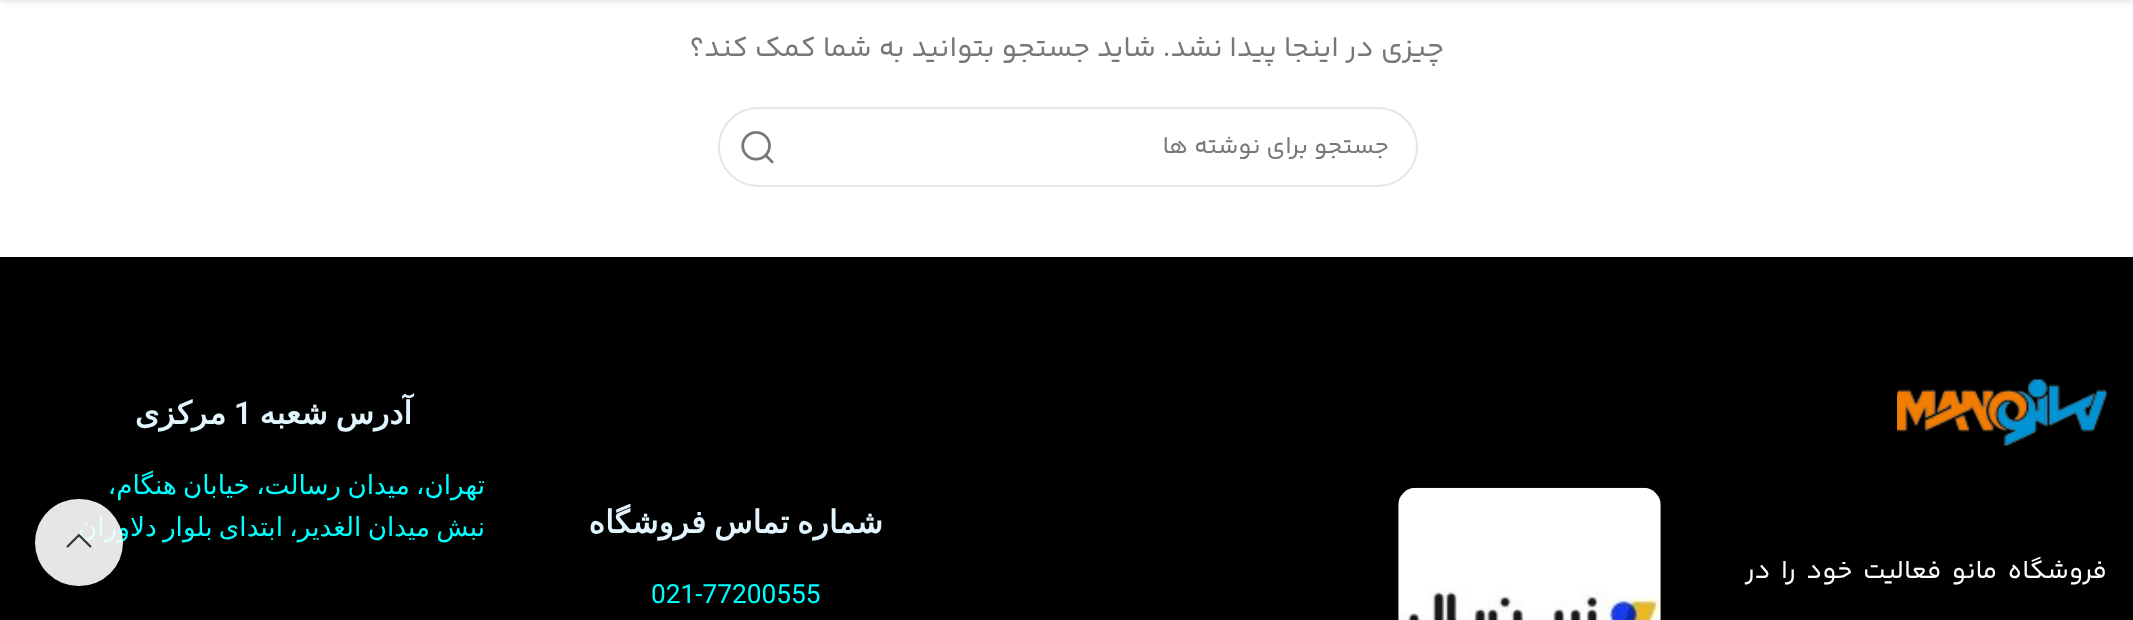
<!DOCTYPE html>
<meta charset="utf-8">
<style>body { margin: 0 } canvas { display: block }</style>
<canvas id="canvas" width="2133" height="620"></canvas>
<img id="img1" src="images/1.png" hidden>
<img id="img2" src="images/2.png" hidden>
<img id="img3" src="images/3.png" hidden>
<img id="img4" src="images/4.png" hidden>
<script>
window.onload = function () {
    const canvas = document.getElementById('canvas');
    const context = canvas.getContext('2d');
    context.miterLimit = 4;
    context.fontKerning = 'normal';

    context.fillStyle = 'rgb(255, 255, 255)';
    context.fillRect(0, 0, 2133, 620);
    context.fillStyle = 'rgba(0, 0, 0, 0.1)';
    context.filter = 'blur(2.5px)';
    context.beginPath();
    context.rect(0, -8, 2133, 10);
    context.fill();
    context.filter = 'none';
    context.beginPath();
    context.roundRect(719, 108, 698, 78, 39);
    context.strokeStyle = 'rgb(230, 230, 230)';
    context.lineWidth = 2;
    context.stroke();
    context.drawImage(document.getElementById('img1'), 741, 131, 33, 33);
    context.fillStyle = 'rgb(0, 0, 0)';
    context.fillRect(0, 257, 2133, 363);
    context.drawImage(document.getElementById('img2'), 1897, 379, 210, 67);
    context.drawImage(document.getElementById('img3'), 1398, 487, 263, 133);
    context.save();
    context.beginPath();
    context.moveTo(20, 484);
    context.lineTo(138, 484);
    context.lineTo(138, 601);
    context.lineTo(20, 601);
    context.closePath();
    context.moveTo(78.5, 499);
    context.lineTo(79.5, 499);
    context.bezierCurveTo(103.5, 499, 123, 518.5, 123, 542.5);
    context.bezierCurveTo(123, 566.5, 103.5, 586, 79.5, 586);
    context.lineTo(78.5, 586);
    context.bezierCurveTo(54.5, 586, 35, 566.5, 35, 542.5);
    context.bezierCurveTo(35, 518.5, 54.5, 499, 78.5, 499);
    context.closePath();
    context.clip('evenodd');
    context.fillStyle = 'rgba(0, 0, 0, 0.17)';
    context.filter = 'blur(4.5px)';
    context.beginPath();
    context.roundRect(35, 499, 88, 87, 43.5);
    context.fill();
    context.filter = 'none';
    context.restore();
    context.direction = 'rtl';
    context.font = '28.9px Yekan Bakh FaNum';
    context.fillStyle = 'rgb(119, 119, 119)';
    context.fillText('چیزی در اینجا پیدا نشد. شاید جستجو بتوانید به شما کمک کند؟', 1444, 56);
    context.font = '24.5px Yekan Bakh FaNum';
    context.fillText('جستجو برای نوشته ها', 1389, 153);
    context.wordSpacing = '-2px';
    context.font = 'bold 31.5px DejaVu Sans';
    context.fillStyle = 'rgb(225, 246, 255)';
    context.fillText('آدرس شعبه', 412, 424);
    context.wordSpacing = '0px';
    context.direction = 'ltr';
    context.font = '600 31.5px Roboto';
    context.fillText('1', 234, 424);
    context.direction = 'rtl';
    context.font = 'bold 31.5px DejaVu Sans';
    context.fillText('مرکزی', 226, 424);
    context.wordSpacing = '-2px';
    context.font = '26.25px DejaVu Sans';
    context.fillStyle = 'rgb(0, 255, 255)';
    context.fillText('تهران، میدان رسالت، خیابان هنگام،', 485, 494);
    context.fillText('نبش میدان الغدیر، ابتدای بلوار دلاوران', 485, 536);
    context.wordSpacing = '4.25px';
    context.font = '26.25px Yekan Bakh FaNum';
    context.fillStyle = 'rgb(255, 255, 255)';
    context.fillText('فروشگاه مانو فعالیت خود را در', 2107, 578);
    context.wordSpacing = '-2px';
    context.font = 'bold 31.5px DejaVu Sans';
    context.fillStyle = 'rgb(225, 246, 255)';
    context.fillText('شماره تماس فروشگاه', 883, 533);
    context.wordSpacing = '0px';
    context.direction = 'ltr';
    context.font = '26.25px Roboto';
    context.fillStyle = 'rgb(0, 255, 255)';
    context.fillText('021-77200555', 651, 603);
    context.fillStyle = 'rgba(255, 255, 255, 0.9)';
    context.beginPath();
    context.roundRect(35, 499, 88, 87, 43.5);
    context.fill();
    context.drawImage(document.getElementById('img4'), 66, 534, 26, 14);
};
</script>
